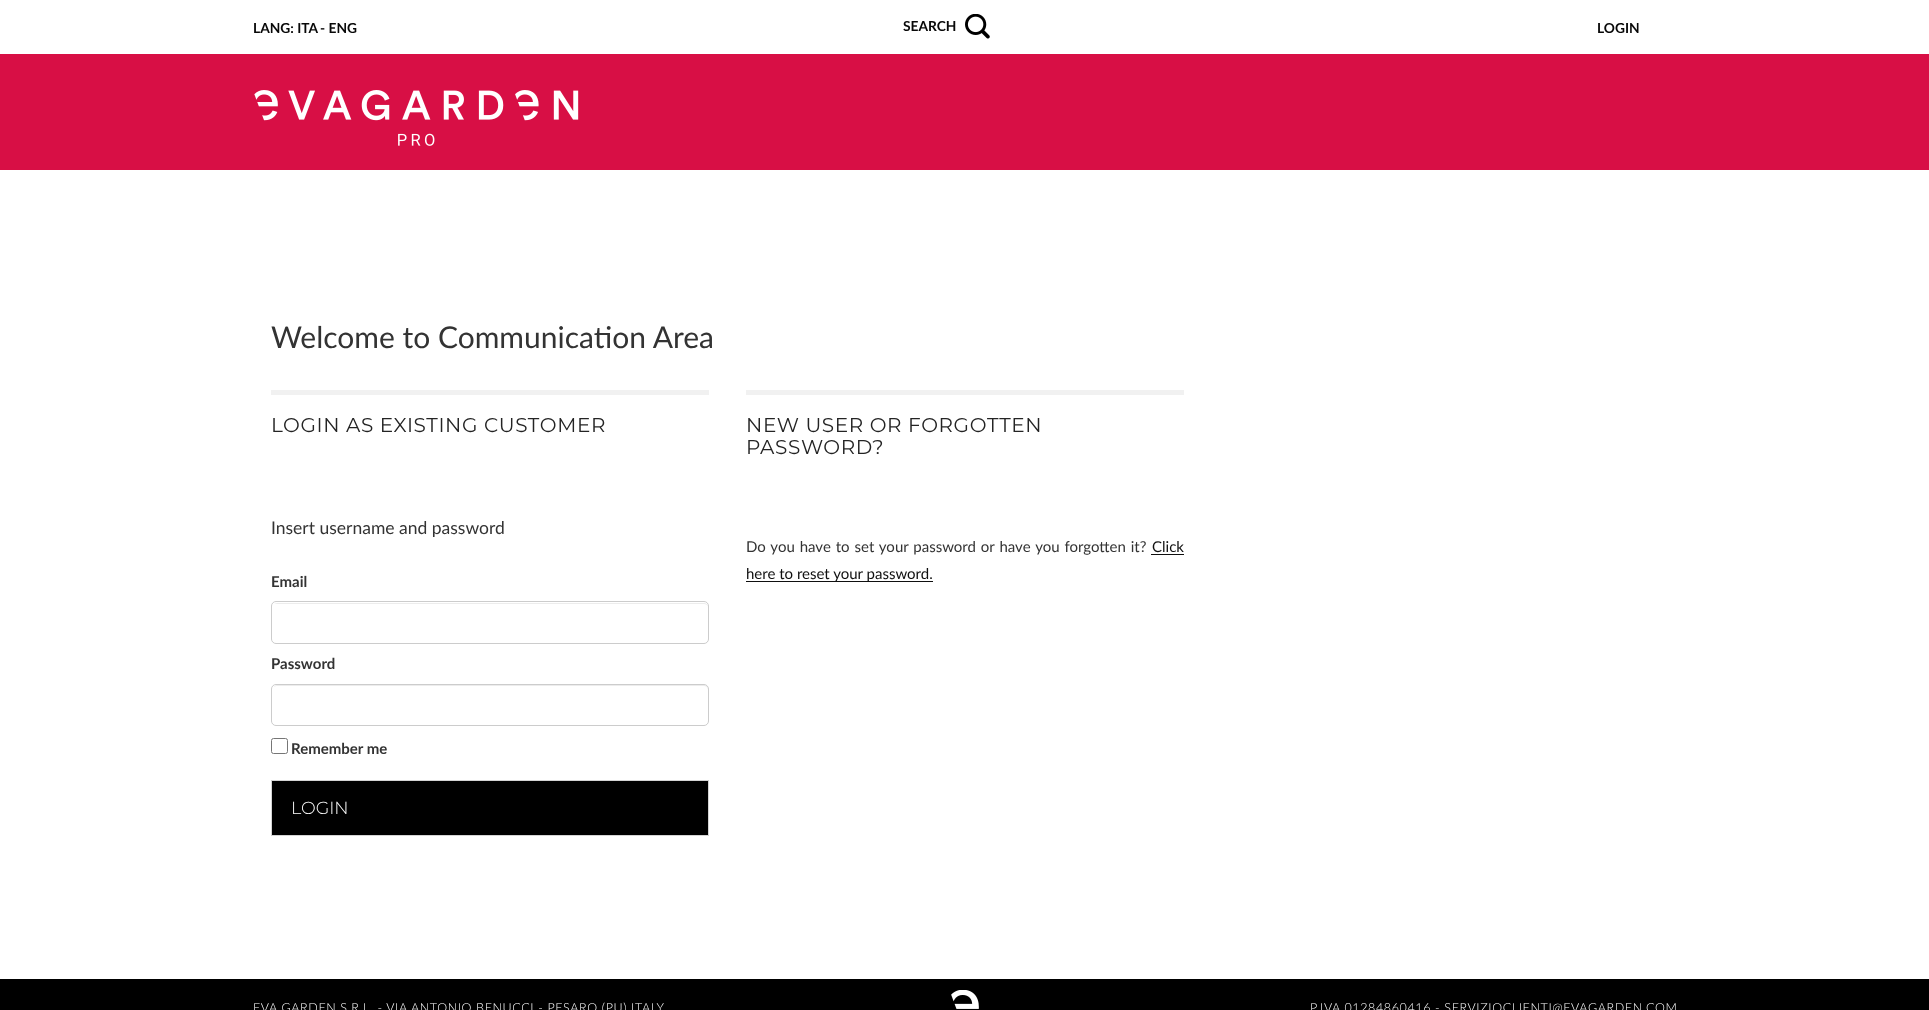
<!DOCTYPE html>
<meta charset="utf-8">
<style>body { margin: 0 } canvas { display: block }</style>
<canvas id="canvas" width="1929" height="1010"></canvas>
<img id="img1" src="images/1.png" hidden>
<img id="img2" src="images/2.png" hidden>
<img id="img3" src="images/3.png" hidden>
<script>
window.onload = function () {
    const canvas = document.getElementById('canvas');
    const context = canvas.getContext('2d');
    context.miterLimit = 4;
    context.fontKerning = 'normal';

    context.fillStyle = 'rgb(255, 255, 255)';
    context.fillRect(0, 0, 1929, 1010);
    context.drawImage(document.getElementById('img1'), 965, 14, 25, 25);
    context.fillStyle = 'rgb(216, 15, 69)';
    context.fillRect(0, 54, 1929, 116);
    context.drawImage(document.getElementById('img2'), 254, 90, 325, 56);
    context.fillStyle = 'rgb(241, 241, 241)';
    context.fillRect(271, 390, 438, 5);
    context.fillStyle = 'rgb(236, 236, 236)';
    context.beginPath();
    context.moveTo(276, 604);
    context.lineTo(704, 604);
    context.bezierCurveTo(706, 604, 708, 605, 708, 608);
    context.lineTo(708, 607);
    context.bezierCurveTo(708, 605, 706, 603, 704, 603);
    context.lineTo(277, 603);
    context.bezierCurveTo(276, 603, 275, 604, 274, 604);
    context.closePath();
    context.fill();
    context.beginPath();
    context.roundRect(271.5, 601.5, 437, 42, 4.5);
    context.strokeStyle = 'rgb(204, 204, 204)';
    context.stroke();
    context.beginPath();
    context.moveTo(276, 686);
    context.lineTo(704, 686);
    context.bezierCurveTo(706, 686, 708, 688, 708, 690);
    context.lineTo(708, 689);
    context.bezierCurveTo(708, 687, 706, 685, 704, 685);
    context.lineTo(277, 685);
    context.bezierCurveTo(276, 685, 274, 686, 274, 687);
    context.closePath();
    context.fill();
    context.beginPath();
    context.roundRect(271.5, 684.5, 437, 41, 4.5);
    context.stroke();
    context.beginPath();
    context.roundRect(271.5, 738.5, 16, 15, 2);
    context.strokeStyle = 'rgb(118, 118, 118)';
    context.stroke();
    context.fillStyle = 'rgb(0, 0, 0)';
    context.beginPath();
    context.rect(271.5, 780.5, 437, 55);
    context.fill();
    context.strokeStyle = 'rgb(212, 212, 212)';
    context.stroke();
    context.fillStyle = 'rgb(241, 241, 241)';
    context.fillRect(746, 390, 438, 5);
    context.fillStyle = 'rgb(15, 15, 15)';
    context.fillRect(1151, 554, 33, 1);
    context.fillRect(746, 581, 187, 1);
    context.fillStyle = 'rgb(0, 0, 0)';
    context.fillRect(0, 979, 1929, 31);
    context.drawImage(document.getElementById('img3'), 951, 990, 28, 19);
    context.font = 'bold 13.75px Lato';
    context.fillStyle = 'rgb(8, 8, 8)';
    context.fillText('LANG: ITA', 253, 33);
    context.fillText('- ENG', 320, 33);
    context.fillText('SEARCH', 903, 31);
    context.fillText('LOGIN', 1597, 33);
    context.font = '30px Lato';
    context.fillStyle = 'rgb(51, 51, 51)';
    context.fillText('Welcome to Communication Area', 271, 348);
    context.letterSpacing = '0.62px';
    context.font = '20px Montserrat';
    context.fillStyle = 'rgb(36, 36, 36)';
    context.fillText('LOGIN AS EXISTING CUSTOMER', 271, 432);
    context.letterSpacing = '0px';
    context.font = '17.5px Lato';
    context.fillStyle = 'rgb(51, 51, 51)';
    context.fillText('Insert username and password', 271, 534);
    context.font = 'bold 15px Lato';
    context.fillText('Email', 271, 587);
    context.fillText('Password', 271, 669);
    context.fillText('Remember me', 291, 754);
    context.font = '300 17.5px Montserrat';
    context.fillStyle = 'rgb(255, 255, 255)';
    context.fillText('LOGIN', 291, 814);
    context.letterSpacing = '0.62px';
    context.font = '20px Montserrat';
    context.fillStyle = 'rgb(36, 36, 36)';
    context.fillText('NEW USER OR FORGOTTEN', 746, 432);
    context.fillText('PASSWORD?', 746, 454);
    context.letterSpacing = '0px';
    context.wordSpacing = '1.1px';
    context.font = '15px Lato';
    context.fillStyle = 'rgb(51, 51, 51)';
    context.fillText('Do you have to set your password or have you forgotten it?', 746, 552);
    context.wordSpacing = '0px';
    context.fillStyle = 'rgb(15, 15, 15)';
    context.fillText('Click', 1152, 552);
    context.fillText('here to reset your password.', 746, 579);
    context.letterSpacing = '0.62px';
    context.font = '300 12.5px Lato';
    context.fillStyle = 'rgb(255, 255, 255)';
    context.fillText('EVA GARDEN S.R.L. - VIA ANTONIO BENUCCI - PESARO (PU) ITALY', 253, 1012);
    context.fillText('P.IVA 01284860416 - SERVIZIOCLIENTI@EVAGARDEN.COM', 1310, 1012);
};
</script>
